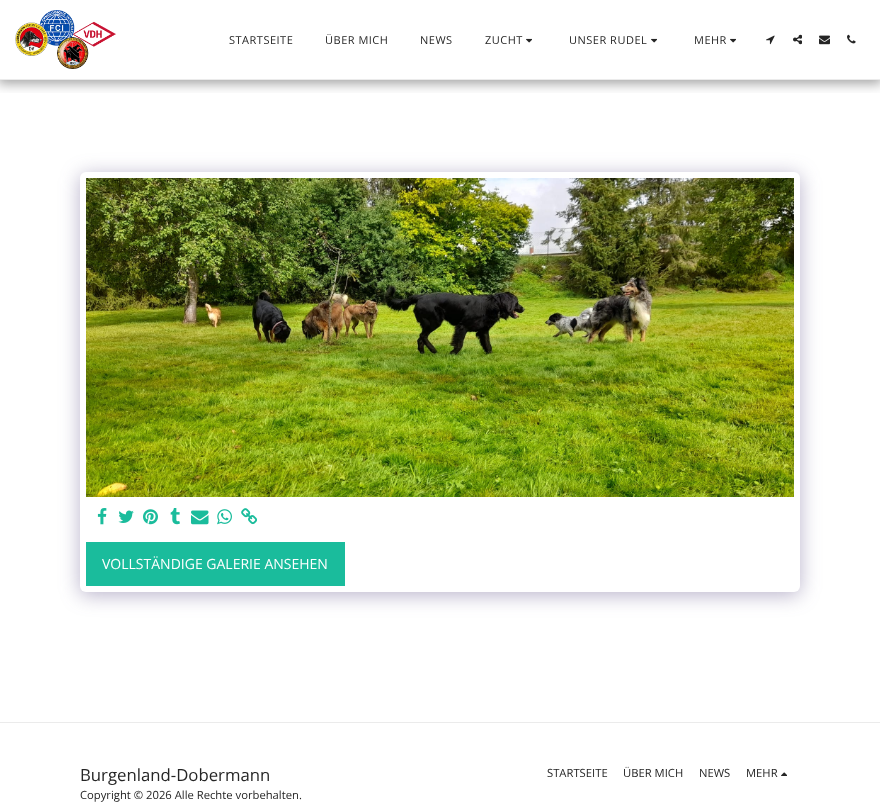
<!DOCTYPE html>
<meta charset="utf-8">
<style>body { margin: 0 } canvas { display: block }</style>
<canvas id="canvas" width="880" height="802"></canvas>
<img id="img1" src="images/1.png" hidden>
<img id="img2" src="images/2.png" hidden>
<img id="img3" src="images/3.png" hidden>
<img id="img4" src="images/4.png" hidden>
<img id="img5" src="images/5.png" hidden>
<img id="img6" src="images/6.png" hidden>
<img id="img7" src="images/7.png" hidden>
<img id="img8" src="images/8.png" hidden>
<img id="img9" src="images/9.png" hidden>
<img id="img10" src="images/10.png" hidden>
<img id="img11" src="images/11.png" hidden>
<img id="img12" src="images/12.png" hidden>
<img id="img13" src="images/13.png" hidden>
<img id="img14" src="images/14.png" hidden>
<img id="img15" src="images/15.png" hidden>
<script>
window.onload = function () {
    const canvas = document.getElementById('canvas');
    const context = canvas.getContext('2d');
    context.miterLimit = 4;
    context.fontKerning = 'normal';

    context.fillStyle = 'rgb(255, 255, 255)';
    context.fillRect(0, 0, 880, 802);
    context.save();
    context.beginPath();
    context.rect(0, 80, 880, 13);
    context.clip();
    context.fillStyle = 'rgba(0, 0, 0, 0.35)';
    context.filter = 'blur(6px)';
    context.beginPath();
    context.rect(-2, 0, 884, 84);
    context.fill();
    context.filter = 'none';
    context.restore();
    context.fillStyle = 'rgb(235, 235, 235)';
    context.fillRect(0, 79, 880, 1);
    context.drawImage(document.getElementById('img1'), 15, 10, 101, 59);
    context.drawImage(document.getElementById('img2'), 526, 38, 6, 5);
    context.drawImage(document.getElementById('img2'), 651, 38, 6, 5);
    context.drawImage(document.getElementById('img2'), 730, 38, 6, 5);
    context.drawImage(document.getElementById('img3'), 766, 35, 9, 10);
    context.drawImage(document.getElementById('img4'), 793, 34, 9, 11);
    context.drawImage(document.getElementById('img5'), 819, 35, 11, 10);
    context.drawImage(document.getElementById('img6'), 847, 34, 9, 10);
    context.fillStyle = 'rgba(77, 63, 122, 0.4)';
    context.filter = 'blur(10px)';
    context.beginPath();
    context.roundRect(80, 175, 720, 420, 6);
    context.fill();
    context.filter = 'none';
    context.fillStyle = 'rgb(255, 255, 255)';
    context.beginPath();
    context.roundRect(80, 172, 720, 420, 6);
    context.fill();
    context.drawImage(document.getElementById('img7'), 86, 178, 708, 319);
    context.drawImage(document.getElementById('img8'), 97, 508, 10, 17);
    context.drawImage(document.getElementById('img9'), 118, 510, 16, 13);
    context.drawImage(document.getElementById('img10'), 143, 509, 15, 16);
    context.drawImage(document.getElementById('img11'), 170, 508, 10, 17);
    context.drawImage(document.getElementById('img12'), 191, 510, 18, 15);
    context.drawImage(document.getElementById('img13'), 217, 509, 15, 16);
    context.drawImage(document.getElementById('img14'), 241, 508, 16, 17);
    context.fillStyle = 'rgb(26, 188, 156)';
    context.fillRect(86, 542, 259, 44);
    context.fillStyle = 'rgb(235, 235, 235)';
    context.fillRect(0, 722, 880, 1);
    context.drawImage(document.getElementById('img15'), 781, 772, 6, 4);
    context.letterSpacing = '0.5px';
    context.font = '11px Open Sans';
    context.fillStyle = 'rgb(37, 37, 37)';
    context.fillText('STARTSEITE', 229, 44);
    context.fillText('ÜBER MICH', 325, 44);
    context.fillText('NEWS', 420, 44);
    context.fillText('ZUCHT', 485, 44);
    context.fillText('UNSER RUDEL', 569, 44);
    context.fillText('MEHR', 694, 44);
    context.letterSpacing = '0px';
    context.font = '14px Open Sans';
    context.fillStyle = 'rgb(255, 255, 255)';
    context.fillText('VOLLSTÄNDIGE GALERIE ANSEHEN', 102, 569);
    context.font = '16.75px Open Sans';
    context.fillStyle = 'rgb(37, 37, 37)';
    context.fillText('Burgenland-Dobermann', 80, 781);
    context.font = '11.25px Open Sans';
    context.fillText('Copyright © 2026 Alle Rechte vorbehalten.', 80, 799);
    context.fillText('STARTSEITE', 547, 777);
    context.fillText('ÜBER MICH', 623, 777);
    context.fillText('NEWS', 699, 777);
    context.fillText('MEHR', 746, 777);
};
</script>
